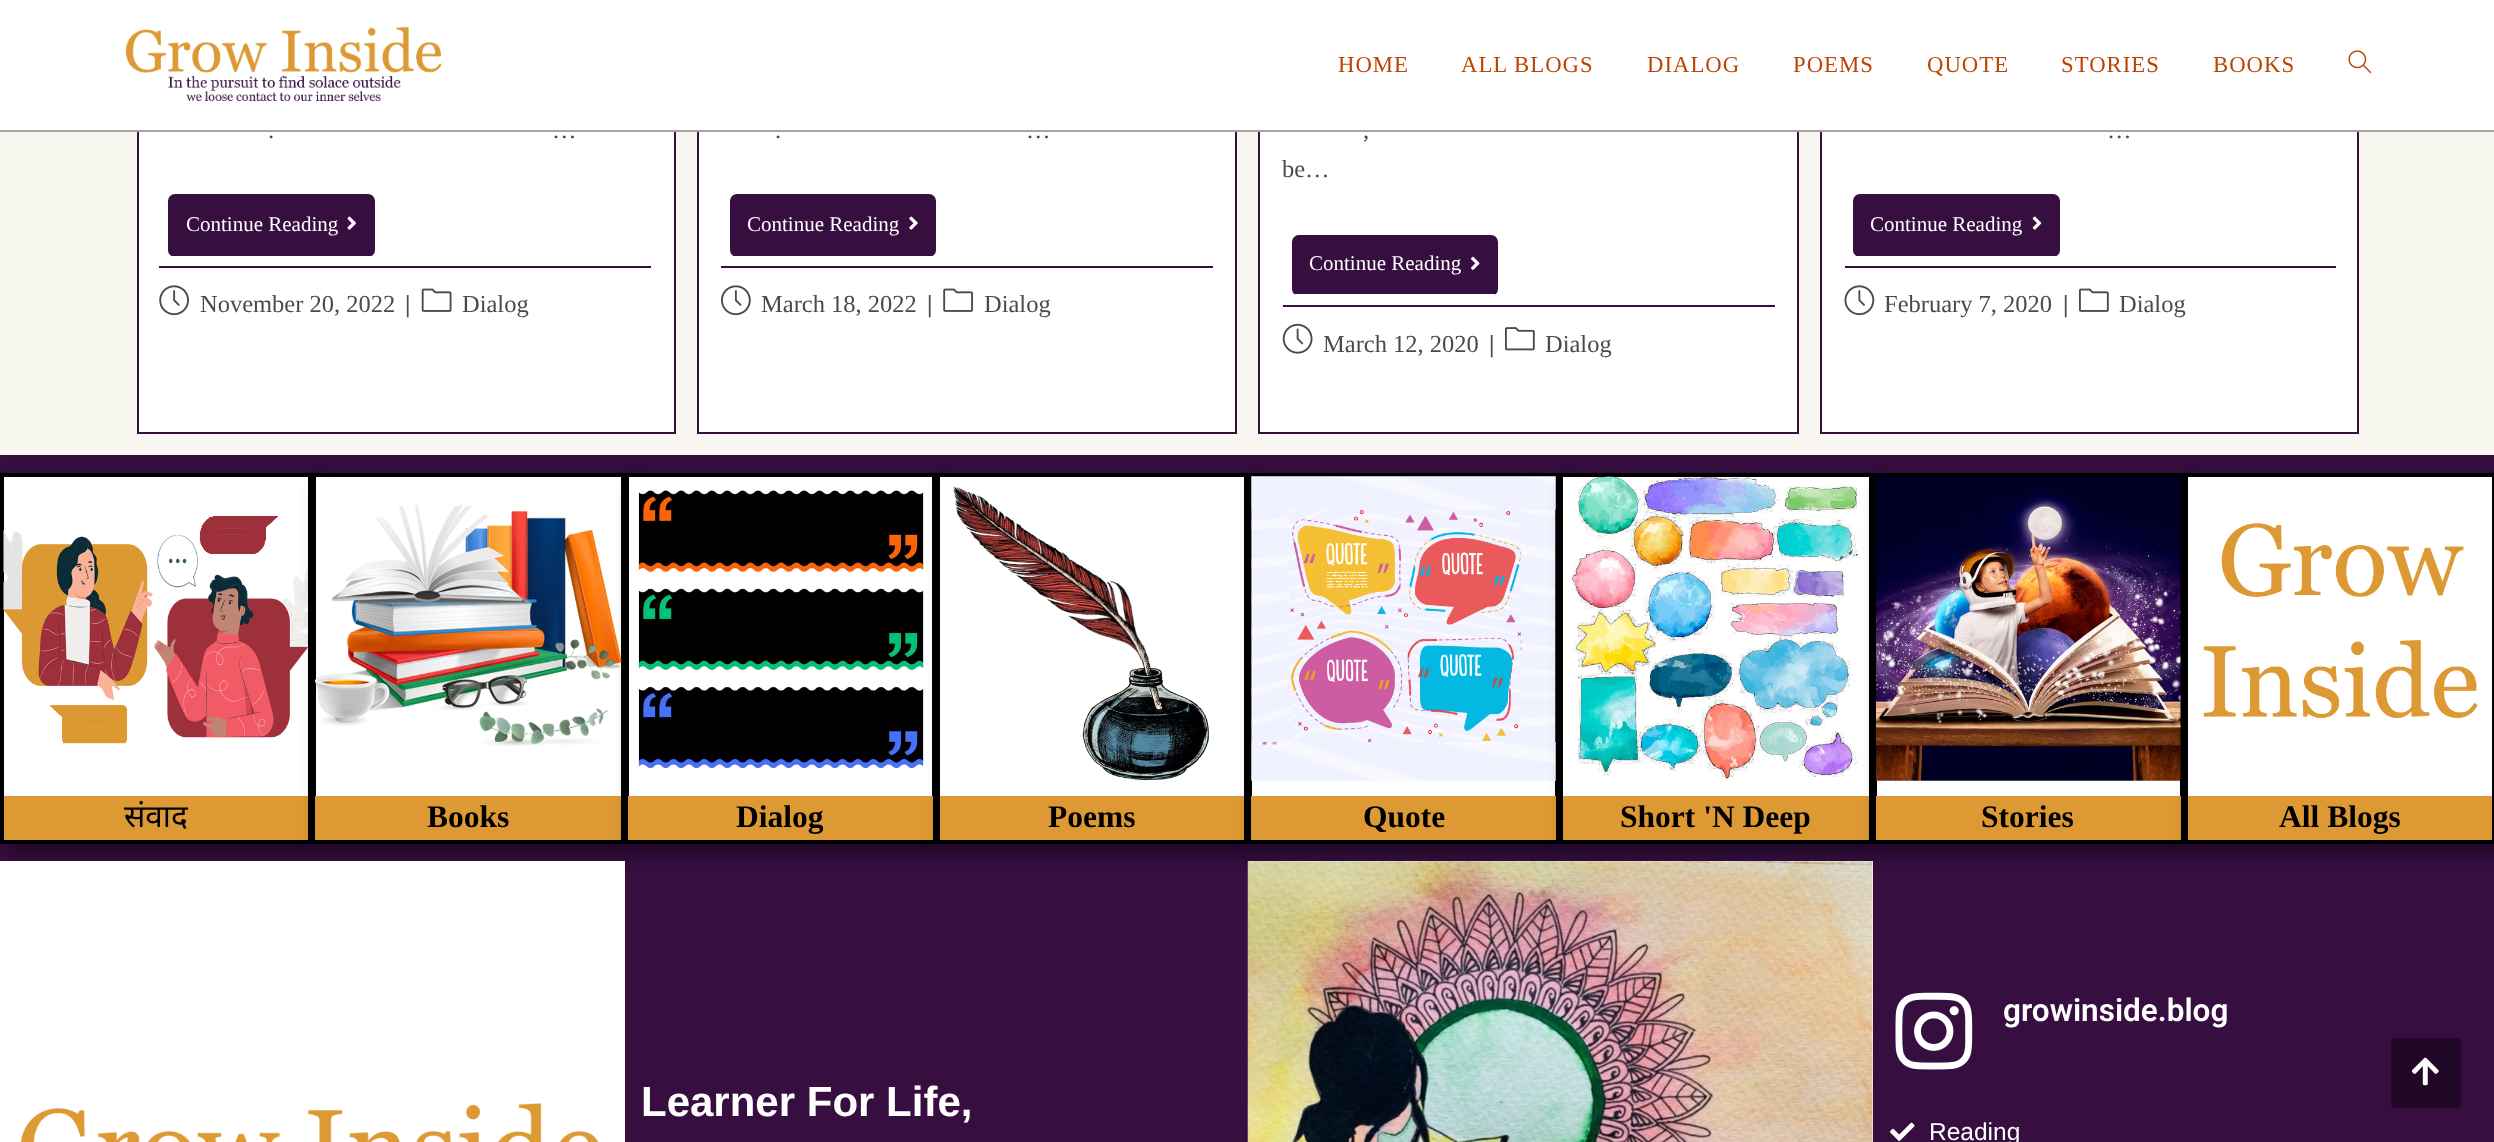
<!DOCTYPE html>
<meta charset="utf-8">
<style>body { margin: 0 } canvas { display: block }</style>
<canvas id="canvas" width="2494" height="1142"></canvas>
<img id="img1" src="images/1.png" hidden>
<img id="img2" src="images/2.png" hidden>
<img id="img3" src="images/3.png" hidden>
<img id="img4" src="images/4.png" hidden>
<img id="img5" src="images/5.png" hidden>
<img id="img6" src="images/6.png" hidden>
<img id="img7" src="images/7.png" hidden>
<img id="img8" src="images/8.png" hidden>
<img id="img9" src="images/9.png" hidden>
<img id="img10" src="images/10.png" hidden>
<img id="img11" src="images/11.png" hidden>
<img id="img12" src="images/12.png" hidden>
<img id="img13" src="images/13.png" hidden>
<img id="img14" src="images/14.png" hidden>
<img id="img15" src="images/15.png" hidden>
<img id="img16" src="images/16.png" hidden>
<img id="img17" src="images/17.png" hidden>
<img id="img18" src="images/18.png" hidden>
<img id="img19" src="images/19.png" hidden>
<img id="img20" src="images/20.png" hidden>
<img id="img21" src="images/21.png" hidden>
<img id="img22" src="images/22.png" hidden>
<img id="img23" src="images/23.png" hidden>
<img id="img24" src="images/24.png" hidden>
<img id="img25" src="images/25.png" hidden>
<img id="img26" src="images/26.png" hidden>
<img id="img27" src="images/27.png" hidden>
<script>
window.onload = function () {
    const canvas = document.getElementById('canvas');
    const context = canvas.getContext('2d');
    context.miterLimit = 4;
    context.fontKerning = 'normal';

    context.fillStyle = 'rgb(247, 246, 239)';
    context.fillRect(0, 0, 2494, 1142);
    context.fillStyle = 'rgb(255, 255, 255)';
    context.fillRect(139, 132, 535, 300);
    context.strokeStyle = 'rgb(54, 14, 63)';
    context.lineWidth = 2;
    context.strokeRect(138, -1, 537, 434);
    context.fillRect(699, 132, 536, 300);
    context.strokeRect(698, -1, 538, 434);
    context.fillRect(1260, 132, 537, 300);
    context.strokeRect(1259, -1, 539, 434);
    context.fillRect(1822, 132, 535, 300);
    context.strokeRect(1821, -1, 537, 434);
    context.fillRect(0, 0, 2494, 130);
    context.fillStyle = 'rgb(165, 165, 165)';
    context.fillRect(0, 130, 2494, 2);
    context.drawImage(document.getElementById('img1'), 125, 26, 317, 76);
    context.drawImage(document.getElementById('img2'), 2348, 50, 24, 24);
    context.fillStyle = 'rgb(54, 14, 63)';
    context.beginPath();
    context.roundRect(168, 194, 207, 63, 7);
    context.fill();
    context.fillStyle = 'rgb(255, 255, 255)';
    context.fillRect(172, 256, 199, 1);
    context.drawImage(document.getElementById('img3'), 347, 216, 9, 14);
    context.fillStyle = 'rgb(54, 14, 63)';
    context.fillRect(159, 266, 492, 2);
    context.drawImage(document.getElementById('img4'), 159, 285, 30, 31);
    context.drawImage(document.getElementById('img5'), 421, 288, 31, 24);
    context.beginPath();
    context.roundRect(730, 194, 206, 63, 7);
    context.fill();
    context.fillStyle = 'rgb(255, 255, 255)';
    context.fillRect(733, 256, 200, 1);
    context.drawImage(document.getElementById('img6'), 909, 216, 9, 14);
    context.fillStyle = 'rgb(54, 14, 63)';
    context.fillRect(721, 266, 492, 2);
    context.drawImage(document.getElementById('img7'), 721, 285, 30, 31);
    context.drawImage(document.getElementById('img8'), 943, 288, 30, 24);
    context.beginPath();
    context.roundRect(1292, 235, 206, 61, 7);
    context.fill();
    context.fillStyle = 'rgb(255, 255, 255)';
    context.fillRect(1295, 294, 200, 2);
    context.drawImage(document.getElementById('img9'), 1471, 256, 9, 14);
    context.fillStyle = 'rgb(54, 14, 63)';
    context.fillRect(1283, 305, 492, 2);
    context.drawImage(document.getElementById('img10'), 1282, 323, 31, 31);
    context.drawImage(document.getElementById('img11'), 1505, 327, 30, 24);
    context.beginPath();
    context.roundRect(1853, 194, 207, 63, 7);
    context.fill();
    context.fillStyle = 'rgb(255, 255, 255)';
    context.fillRect(1857, 256, 199, 1);
    context.drawImage(document.getElementById('img12'), 2032, 216, 10, 14);
    context.fillStyle = 'rgb(54, 14, 63)';
    context.fillRect(1845, 266, 491, 2);
    context.drawImage(document.getElementById('img13'), 1844, 285, 31, 31);
    context.drawImage(document.getElementById('img14'), 2079, 288, 30, 24);
    context.fillRect(0, 455, 2494, 687);
    context.fillStyle = 'rgba(0, 0, 0, 0.5)';
    context.filter = 'blur(9px)';
    context.beginPath();
    context.rect(9, 481, 311, 371);
    context.fill();
    context.filter = 'none';
    context.fillStyle = 'rgb(255, 255, 255)';
    context.fillRect(4, 477, 304, 319);
    context.strokeStyle = 'rgb(0, 0, 0)';
    context.lineWidth = 4;
    context.strokeRect(2, 475, 308, 367);
    context.drawImage(document.getElementById('img15'), 3, 516, 305, 228);
    context.fillStyle = 'rgb(221, 153, 51)';
    context.fillRect(4, 796, 304, 44);
    context.fillStyle = 'rgba(0, 0, 0, 0.5)';
    context.filter = 'blur(9px)';
    context.beginPath();
    context.rect(320, 481, 314, 371);
    context.fill();
    context.filter = 'none';
    context.fillStyle = 'rgb(255, 255, 255)';
    context.fillRect(316, 477, 305, 319);
    context.strokeRect(314, 475, 309, 367);
    context.drawImage(document.getElementById('img16'), 315, 502, 307, 244);
    context.fillStyle = 'rgb(221, 153, 51)';
    context.fillRect(315, 796, 306, 44);
    context.fillStyle = 'rgba(0, 0, 0, 0.5)';
    context.filter = 'blur(9px)';
    context.beginPath();
    context.rect(634, 481, 311, 371);
    context.fill();
    context.filter = 'none';
    context.fillStyle = 'rgb(255, 255, 255)';
    context.fillRect(629, 477, 303, 319);
    context.strokeRect(627, 475, 307, 367);
    context.drawImage(document.getElementById('img17'), 638, 490, 289, 279);
    context.fillStyle = 'rgb(221, 153, 51)';
    context.fillRect(628, 796, 305, 44);
    context.fillStyle = 'rgba(0, 0, 0, 0.5)';
    context.filter = 'blur(9px)';
    context.beginPath();
    context.rect(945, 481, 312, 371);
    context.fill();
    context.filter = 'none';
    context.fillStyle = 'rgb(255, 255, 255)';
    context.fillRect(940, 477, 304, 319);
    context.strokeRect(938, 475, 308, 367);
    context.drawImage(document.getElementById('img18'), 953, 486, 256, 295);
    context.fillStyle = 'rgb(221, 153, 51)';
    context.fillRect(940, 796, 304, 44);
    context.fillStyle = 'rgba(0, 0, 0, 0.5)';
    context.filter = 'blur(9px)';
    context.beginPath();
    context.rect(1257, 481, 311, 371);
    context.fill();
    context.filter = 'none';
    context.fillStyle = 'rgb(255, 255, 255)';
    context.fillRect(1252, 509, 303, 287);
    context.strokeRect(1250, 475, 307, 367);
    context.drawImage(document.getElementById('img19'), 1251, 476, 305, 305);
    context.fillStyle = 'rgb(221, 153, 51)';
    context.fillRect(1251, 796, 305, 44);
    context.fillStyle = 'rgba(0, 0, 0, 0.5)';
    context.filter = 'blur(9px)';
    context.beginPath();
    context.rect(1568, 481, 313, 371);
    context.fill();
    context.filter = 'none';
    context.fillStyle = 'rgb(255, 255, 255)';
    context.fillRect(1563, 477, 306, 319);
    context.strokeRect(1561, 475, 310, 367);
    context.drawImage(document.getElementById('img20'), 1571, 476, 287, 305);
    context.fillStyle = 'rgb(221, 153, 51)';
    context.fillRect(1563, 796, 306, 44);
    context.fillStyle = 'rgba(0, 0, 0, 0.5)';
    context.filter = 'blur(9px)';
    context.beginPath();
    context.rect(1881, 481, 312, 371);
    context.fill();
    context.filter = 'none';
    context.fillStyle = 'rgb(255, 255, 255)';
    context.fillRect(1877, 780, 303, 16);
    context.strokeRect(1875, 475, 307, 367);
    context.drawImage(document.getElementById('img21'), 1876, 476, 305, 305);
    context.fillStyle = 'rgb(221, 153, 51)';
    context.fillRect(1876, 796, 305, 44);
    context.fillStyle = 'rgba(0, 0, 0, 0.5)';
    context.filter = 'blur(9px)';
    context.beginPath();
    context.rect(2193, 481, 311, 371);
    context.fill();
    context.filter = 'none';
    context.fillStyle = 'rgb(255, 255, 255)';
    context.fillRect(2188, 477, 304, 319);
    context.strokeRect(2186, 475, 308, 367);
    context.drawImage(document.getElementById('img22'), 2203, 523, 275, 196);
    context.fillStyle = 'rgb(221, 153, 51)';
    context.fillRect(2188, 796, 304, 44);
    context.fillStyle = 'rgb(255, 255, 255)';
    context.fillRect(0, 861, 625, 281);
    context.drawImage(document.getElementById('img23'), 20, 1103, 578, 39);
    context.fillRect(1248, 861, 625, 281);
    context.drawImage(document.getElementById('img24'), 1247, 861, 626, 281);
    context.drawImage(document.getElementById('img25'), 1895, 992, 78, 78);
    context.drawImage(document.getElementById('img26'), 1890, 1122, 25, 19);
    context.fillStyle = 'rgb(32, 8, 38)';
    context.beginPath();
    context.roundRect(2391, 1038, 70, 70, 4);
    context.fill();
    context.drawImage(document.getElementById('img27'), 2411, 1057, 28, 29);
    context.letterSpacing = '1px';
    context.font = '22.75px Liberation Serif';
    context.fillStyle = 'rgb(186, 68, 0)';
    context.fillText('HOME', 1338, 72);
    context.fillText('ALL BLOGS', 1461, 72);
    context.fillText('DIALOG', 1647, 72);
    context.fillText('POEMS', 1793, 72);
    context.fillText('QUOTE', 1927, 72);
    context.fillText('STORIES', 2061, 72);
    context.fillText('BOOKS', 2213, 72);
    context.letterSpacing = '0px';
    context.font = '24.5px Liberation Serif';
    context.fillStyle = 'rgb(74, 74, 74)';
    context.fillText('.', 268, 138);
    context.fillText('…', 552, 138);
    context.font = '21px Liberation Serif';
    context.fillStyle = 'rgb(255, 255, 255)';
    context.fillText('Continue Reading', 186, 231);
    context.font = '24.5px Liberation Serif';
    context.fillStyle = 'rgb(74, 74, 74)';
    context.fillText('November 20, 2022', 200, 312);
    context.font = 'bold 24.5px Liberation Serif';
    context.fillText('|', 405, 312);
    context.font = '24.5px Liberation Serif';
    context.fillText('Dialog', 462, 312);
    context.fillText('.', 775, 138);
    context.fillText('…', 1026, 138);
    context.font = '21px Liberation Serif';
    context.fillStyle = 'rgb(255, 255, 255)';
    context.fillText('Continue Reading', 747, 231);
    context.font = '24.5px Liberation Serif';
    context.fillStyle = 'rgb(74, 74, 74)';
    context.fillText('March 18, 2022', 761, 312);
    context.font = 'bold 24.5px Liberation Serif';
    context.fillText('|', 927, 312);
    context.font = '24.5px Liberation Serif';
    context.fillText('Dialog', 984, 312);
    context.fillText(',', 1363, 138);
    context.fillText('be…', 1282, 177);
    context.font = '21px Liberation Serif';
    context.fillStyle = 'rgb(255, 255, 255)';
    context.fillText('Continue Reading', 1309, 270);
    context.font = '24.5px Liberation Serif';
    context.fillStyle = 'rgb(74, 74, 74)';
    context.fillText('March 12, 2020', 1323, 352);
    context.font = 'bold 24.5px Liberation Serif';
    context.fillText('|', 1489, 352);
    context.font = '24.5px Liberation Serif';
    context.fillText('Dialog', 1545, 352);
    context.fillText('…', 2107, 138);
    context.font = '21px Liberation Serif';
    context.fillStyle = 'rgb(255, 255, 255)';
    context.fillText('Continue Reading', 1870, 231);
    context.font = '24.5px Liberation Serif';
    context.fillStyle = 'rgb(74, 74, 74)';
    context.fillText('February 7, 2020', 1884, 312);
    context.font = 'bold 24.5px Liberation Serif';
    context.fillText('|', 2063, 312);
    context.font = '24.5px Liberation Serif';
    context.fillText('Dialog', 2119, 312);
    context.font = '31.5px Noto Sans';
    context.fillStyle = 'rgb(0, 0, 0)';
    context.fillText('संवाद', 124, 827);
    context.font = 'bold 31.5px Liberation Serif';
    context.fillText('Books', 427, 827);
    context.fillText('Dialog', 736, 827);
    context.fillText('Poems', 1048, 827);
    context.fillText('Quote', 1363, 827);
    context.fillText('Short \'N Deep', 1620, 827);
    context.fillText('Stories', 1981, 827);
    context.fillText('All Blogs', 2279, 827);
    context.font = 'bold 42px Liberation Sans';
    context.fillStyle = 'rgb(255, 255, 255)';
    context.fillText('Learner For Life,', 641, 1116);
    context.font = '600 31.5px Roboto';
    context.fillText('growinside.blog', 2003, 1021);
    context.font = '24.5px Liberation Sans';
    context.fillText('Reading', 1929, 1140);
};
</script>
